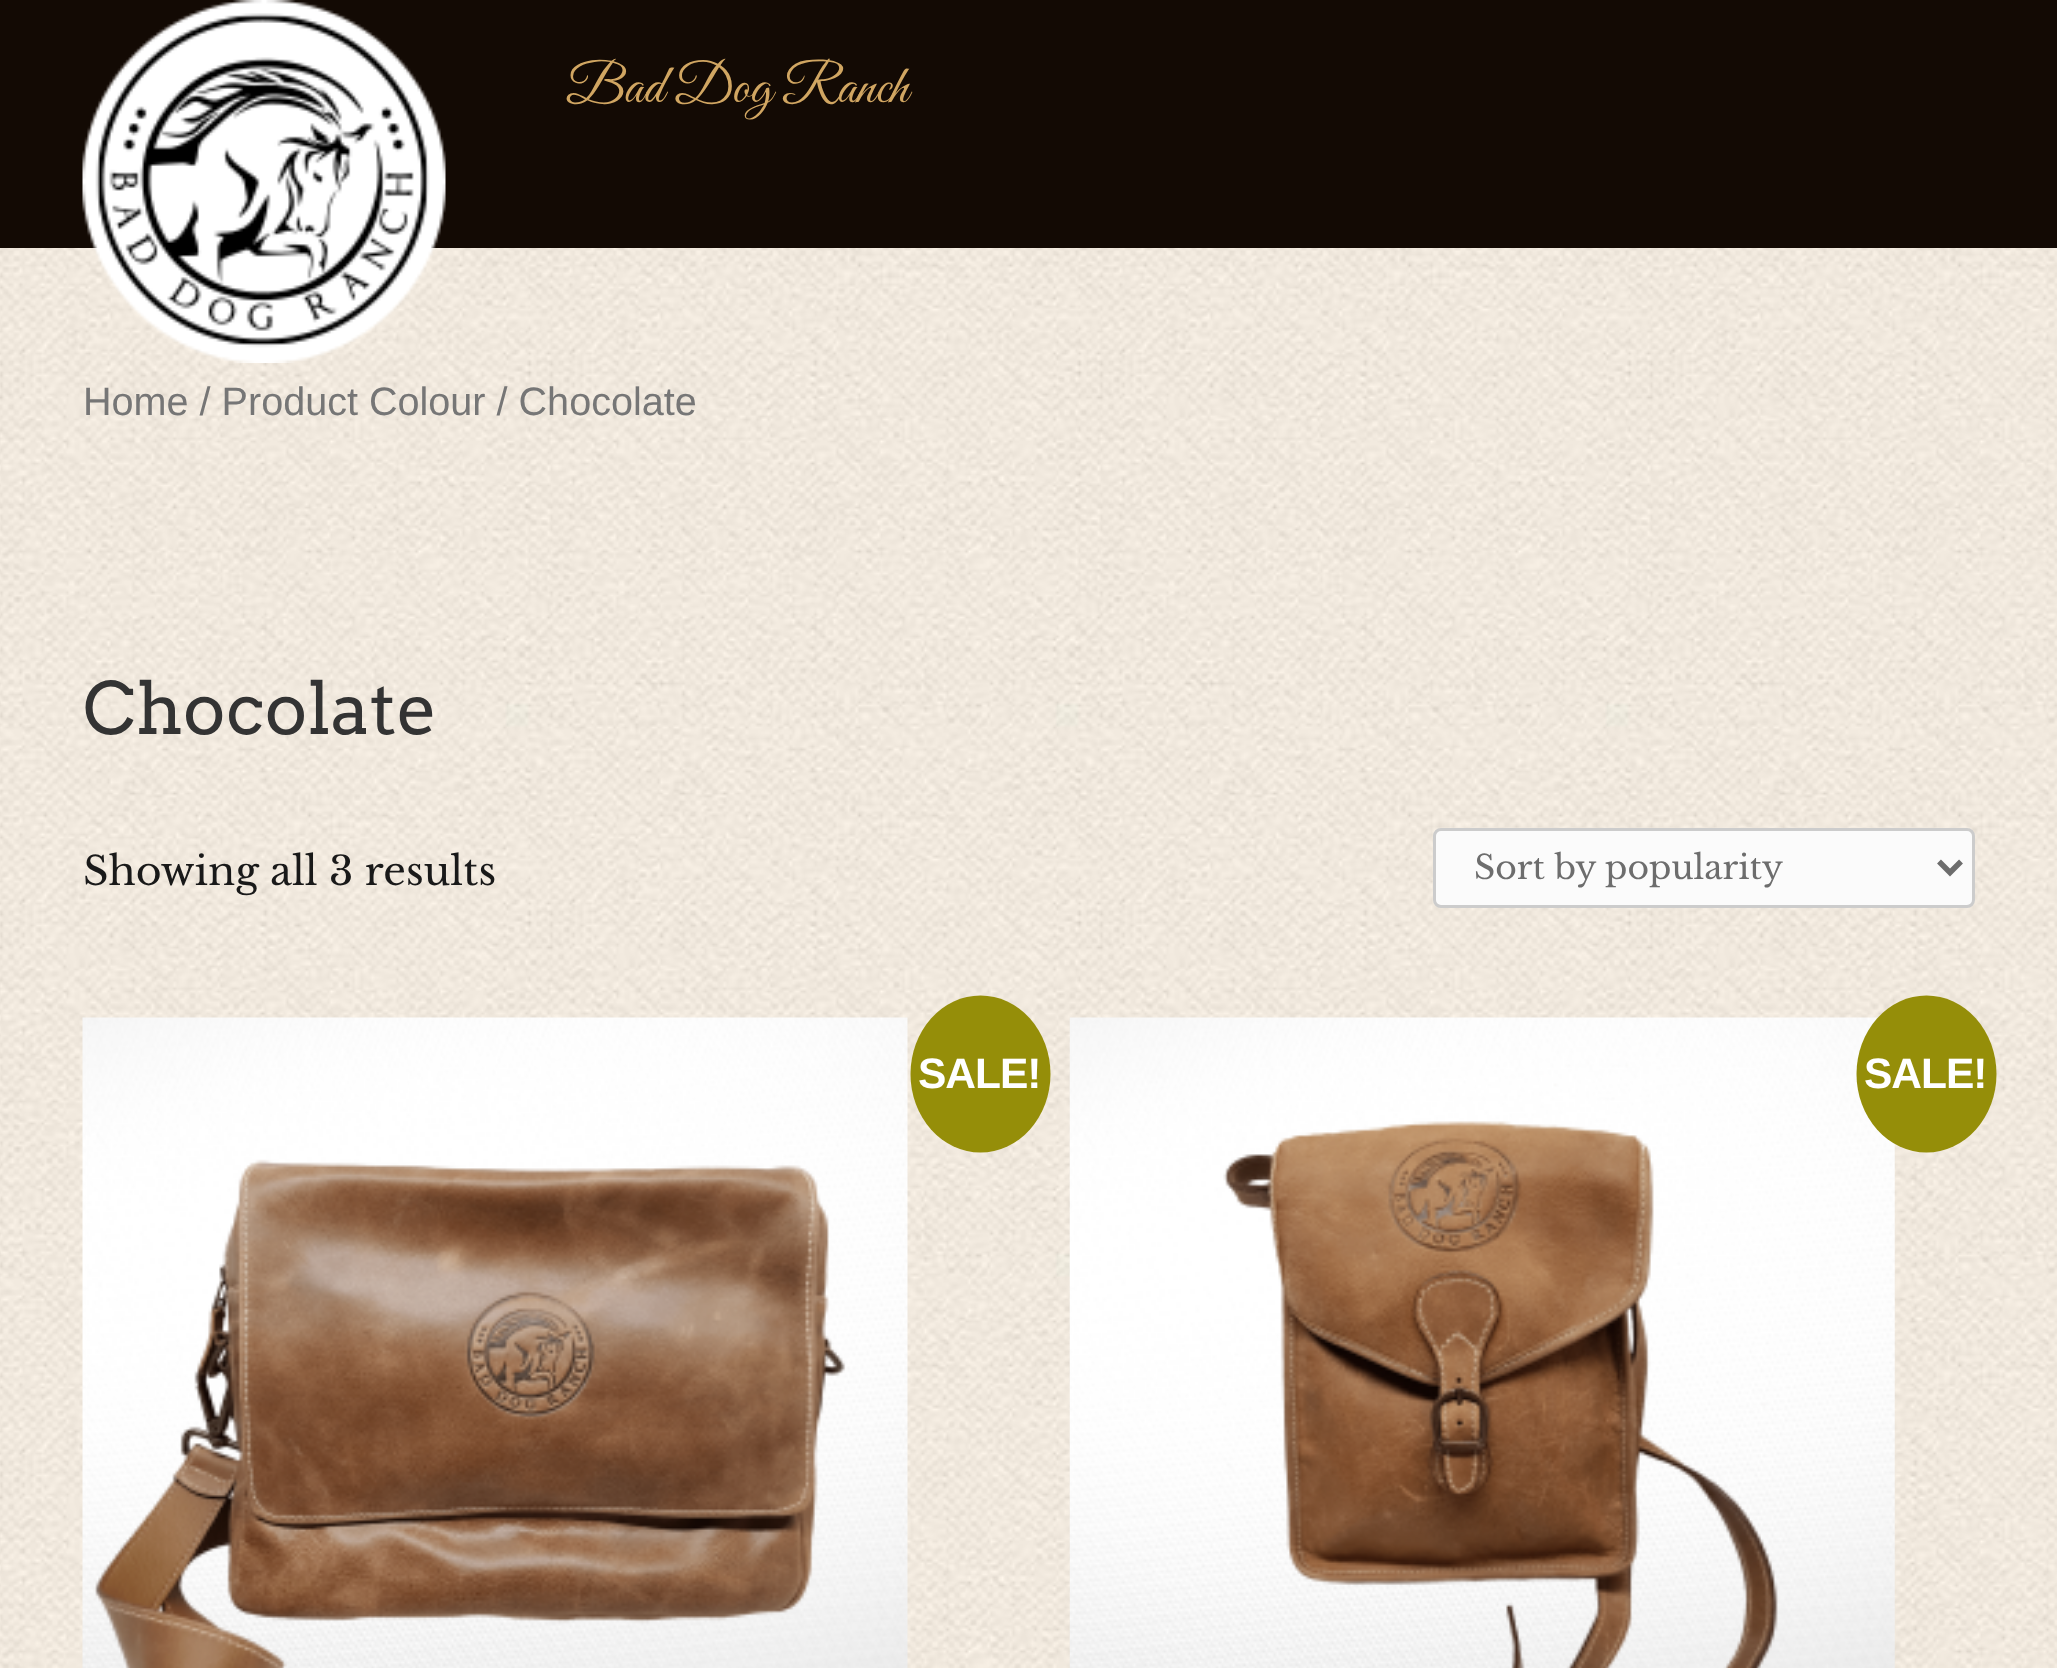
<!DOCTYPE html>
<meta charset="utf-8">
<style>body { margin: 0 } canvas { display: block }</style>
<canvas id="canvas" width="2057" height="1668"></canvas>
<img id="img1" src="images/1.png" hidden>
<img id="img2" src="images/2.png" hidden>
<img id="img3" src="images/3.png" hidden>
<img id="img4" src="images/4.png" hidden>
<script>
window.onload = function () {
    const canvas = document.getElementById('canvas');
    const context = canvas.getContext('2d');
    context.miterLimit = 4;
    context.fontKerning = 'normal';

    context.fillStyle = 'rgb(255, 255, 255)';
    context.fillRect(0, 0, 2057, 1668);
    context.drawImage(document.getElementById('img1'), 0, 248, 2057, 1420);
    context.fillStyle = 'rgb(19, 10, 4)';
    context.fillRect(0, 0, 2057, 248);
    context.drawImage(document.getElementById('img2'), 82, 0, 364, 363);
    context.fillStyle = 'rgb(251, 251, 251)';
    context.beginPath();
    context.roundRect(1434.5, 829.5, 539, 77, 6.5);
    context.fill();
    context.strokeStyle = 'rgb(204, 204, 204)';
    context.lineWidth = 3;
    context.stroke();
    context.beginPath();
    context.moveTo(1939, 861.5);
    context.lineTo(1950, 872.5);
    context.lineTo(1961, 861.5);
    context.strokeStyle = 'rgb(109, 109, 109)';
    context.lineWidth = 5.5;
    context.stroke();
    context.drawImage(document.getElementById('img3'), 82, 1017, 826, 651);
    context.fillStyle = 'rgb(149, 142, 9)';
    context.beginPath();
    context.ellipse(980.5, 1074, 70, 78.5, 0, 0, 2 * Math.PI);
    context.fill();
    context.drawImage(document.getElementById('img4'), 1069, 1017, 826, 651);
    context.beginPath();
    context.ellipse(1926.5, 1074, 70, 78.5, 0, 0, 2 * Math.PI);
    context.fill();
    context.font = '55px Great Vibes';
    context.fillStyle = 'rgb(209, 166, 98)';
    context.fillText('Bad Dog Ranch', 566, 102);
    context.font = '39.6px Liberation Sans';
    context.fillStyle = 'rgb(118, 118, 118)';
    context.fillText('Home / Product Colour / Chocolate', 83, 415);
    context.font = '71.5px Arvo';
    context.fillStyle = 'rgb(51, 51, 51)';
    context.fillText('Chocolate', 83, 734);
    context.font = '39.6px Libre Baskerville';
    context.fillStyle = 'rgb(25, 25, 25)';
    context.fillText('Showing all 3 results', 83, 885);
    context.font = '33px Libre Baskerville';
    context.fillStyle = 'rgb(109, 109, 109)';
    context.fillText('Sort by popularity', 1474, 879);
    context.letterSpacing = '-1px';
    context.font = 'bold 42.5px Liberation Sans';
    context.fillStyle = 'rgb(255, 255, 255)';
    context.fillText('SALE!', 918, 1088);
    context.fillText('SALE!', 1864, 1088);
};
</script>
